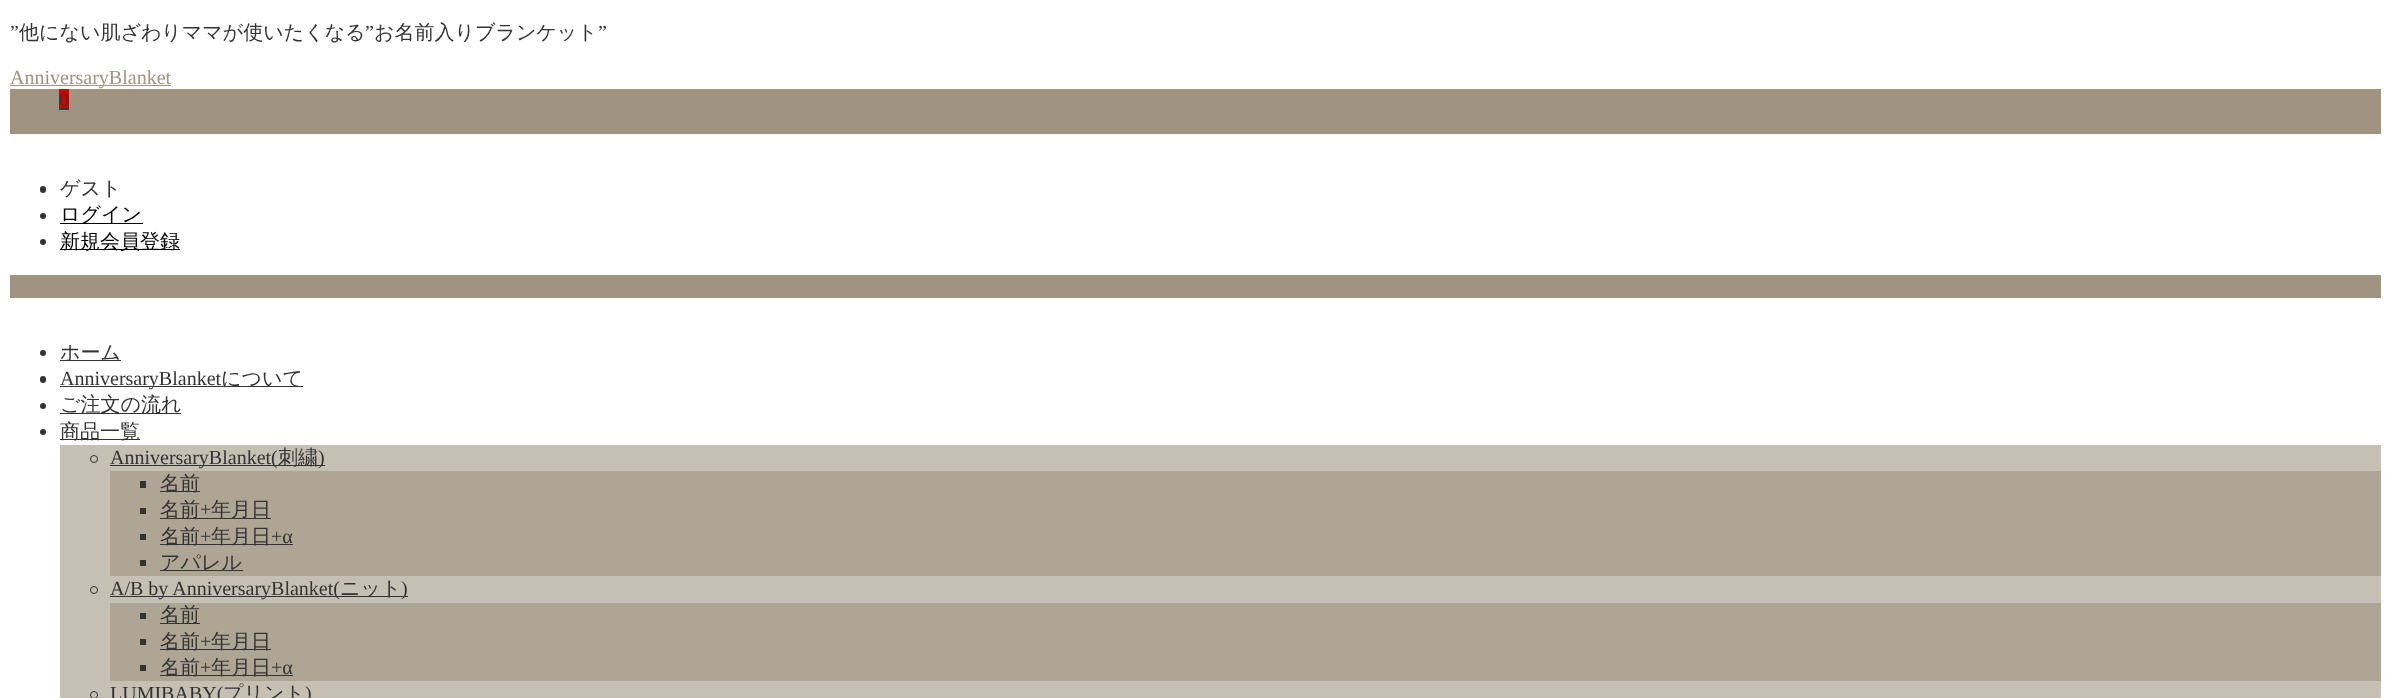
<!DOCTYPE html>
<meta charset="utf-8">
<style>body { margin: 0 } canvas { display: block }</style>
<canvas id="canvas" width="2391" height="698"></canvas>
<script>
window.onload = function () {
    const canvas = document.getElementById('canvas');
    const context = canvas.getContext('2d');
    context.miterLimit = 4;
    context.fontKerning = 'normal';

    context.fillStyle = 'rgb(255, 255, 255)';
    context.fillRect(0, 0, 2391, 698);
    context.fillStyle = 'rgb(160, 147, 128)';
    context.fillRect(10, 85, 161, 1);
    context.fillRect(10, 89, 2371, 45);
    context.fillStyle = 'rgb(204, 0, 0)';
    context.fillRect(59, 89, 10, 21);
    context.fillStyle = 'rgb(51, 51, 51)';
    context.fillRect(59, 108, 10, 1);
    context.beginPath();
    context.roundRect(40, 186, 6, 7, 3);
    context.fill();
    context.beginPath();
    context.arc(43, 216, 3, 0, 2 * Math.PI);
    context.fill();
    context.fillStyle = 'rgb(0, 0, 0)';
    context.fillRect(60, 223, 83, 1);
    context.fillStyle = 'rgb(51, 51, 51)';
    context.beginPath();
    context.arc(43, 242, 3, 0, 2 * Math.PI);
    context.fill();
    context.fillStyle = 'rgb(0, 0, 0)';
    context.fillRect(60, 249, 120, 1);
    context.fillStyle = 'rgb(160, 147, 128)';
    context.fillRect(10, 275, 2371, 23);
    context.fillStyle = 'rgb(51, 51, 51)';
    context.beginPath();
    context.arc(43, 353, 3, 0, 2 * Math.PI);
    context.fill();
    context.fillRect(60, 360, 61, 1);
    context.beginPath();
    context.roundRect(40, 376, 6, 7, 3);
    context.fill();
    context.fillRect(60, 386, 243, 1);
    context.beginPath();
    context.arc(43, 406, 3, 0, 2 * Math.PI);
    context.fill();
    context.fillRect(60, 413, 121, 1);
    context.beginPath();
    context.arc(43, 432, 3, 0, 2 * Math.PI);
    context.fill();
    context.fillRect(60, 439, 80, 1);
    context.fillStyle = 'rgb(198, 191, 179)';
    context.fillRect(60, 445, 2321, 253);
    context.beginPath();
    context.arc(94, 459, 3.5, 0, 2 * Math.PI);
    context.strokeStyle = 'rgb(51, 51, 51)';
    context.stroke();
    context.fillStyle = 'rgb(51, 51, 51)';
    context.fillRect(110, 465, 215, 1);
    context.fillStyle = 'rgb(175, 165, 149)';
    context.fillRect(110, 471, 2271, 105);
    context.fillStyle = 'rgb(51, 51, 51)';
    context.fillRect(140, 481, 6, 7);
    context.fillRect(160, 491, 40, 1);
    context.fillRect(140, 508, 6, 6);
    context.fillRect(160, 518, 111, 1);
    context.fillRect(140, 534, 6, 6);
    context.fillRect(160, 544, 133, 1);
    context.fillRect(140, 560, 6, 6);
    context.fillRect(160, 570, 83, 1);
    context.beginPath();
    context.arc(94, 590, 3.5, 0, 2 * Math.PI);
    context.stroke();
    context.fillRect(110, 596, 298, 1);
    context.fillStyle = 'rgb(175, 165, 149)';
    context.fillRect(110, 603, 2271, 78);
    context.fillStyle = 'rgb(51, 51, 51)';
    context.fillRect(140, 613, 6, 6);
    context.fillRect(160, 623, 40, 1);
    context.fillRect(140, 639, 6, 6);
    context.fillRect(160, 649, 111, 1);
    context.fillRect(140, 665, 6, 6);
    context.fillRect(160, 675, 133, 1);
    context.beginPath();
    context.arc(94, 695, 3.5, 0, 2 * Math.PI);
    context.stroke();
    context.font = '20px Liberation Serif';
    context.fillText('”', 10, 39);
    context.font = '500 20px WenQuanYi Zen Hei';
    context.fillText('他にない肌ざわりママが使いたくなる', 19, 39);
    context.font = '20px Liberation Serif';
    context.fillText('”', 365, 39);
    context.font = '500 20px WenQuanYi Zen Hei';
    context.fillText('お名前入りブランケット', 374, 39);
    context.font = '20px Liberation Serif';
    context.fillText('”', 598, 39);
    context.fillStyle = 'rgb(160, 147, 128)';
    context.fillText('AnniversaryBlanket', 10, 84);
    context.fillStyle = 'rgb(51, 51, 51)';
    context.fillText('0', 59, 106);
    context.font = '500 20px WenQuanYi Zen Hei';
    context.fillText('ゲスト', 60, 195);
    context.fillStyle = 'rgb(0, 0, 0)';
    context.fillText('ログイン', 60, 221);
    context.fillText('新規会員登録', 60, 248);
    context.fillStyle = 'rgb(51, 51, 51)';
    context.fillText('ホーム', 60, 359);
    context.font = '20px Liberation Serif';
    context.fillText('AnniversaryBlanket', 60, 385);
    context.font = '500 20px WenQuanYi Zen Hei';
    context.fillText('について', 221, 385);
    context.fillText('ご注文の流れ', 60, 411);
    context.fillText('商品一覧', 60, 438);
    context.font = '20px Liberation Serif';
    context.fillText('AnniversaryBlanket(', 110, 464);
    context.font = '500 20px WenQuanYi Zen Hei';
    context.fillText('刺繍', 278, 464);
    context.font = '20px Liberation Serif';
    context.fillText(')', 318, 464);
    context.font = '500 20px WenQuanYi Zen Hei';
    context.fillText('名前', 160, 490);
    context.fillText('名前', 160, 516);
    context.font = '20px Liberation Serif';
    context.fillText('+', 200, 516);
    context.font = '500 20px WenQuanYi Zen Hei';
    context.fillText('年月日', 211, 516);
    context.fillText('名前', 160, 543);
    context.font = '20px Liberation Serif';
    context.fillText('+', 200, 543);
    context.font = '500 20px WenQuanYi Zen Hei';
    context.fillText('年月日', 211, 543);
    context.font = '20px Liberation Serif';
    context.fillText('+α', 271, 543);
    context.font = '500 20px WenQuanYi Zen Hei';
    context.fillText('アパレル', 160, 569);
    context.font = '20px Liberation Serif';
    context.fillText('A/B by AnniversaryBlanket(', 110, 595);
    context.font = '500 20px WenQuanYi Zen Hei';
    context.fillText('ニット', 340, 595);
    context.font = '20px Liberation Serif';
    context.fillText(')', 401, 595);
    context.font = '500 20px WenQuanYi Zen Hei';
    context.fillText('名前', 160, 621);
    context.fillText('名前', 160, 648);
    context.font = '20px Liberation Serif';
    context.fillText('+', 200, 648);
    context.font = '500 20px WenQuanYi Zen Hei';
    context.fillText('年月日', 211, 648);
    context.fillText('名前', 160, 674);
    context.font = '20px Liberation Serif';
    context.fillText('+', 200, 674);
    context.font = '500 20px WenQuanYi Zen Hei';
    context.fillText('年月日', 211, 674);
    context.font = '20px Liberation Serif';
    context.fillText('+α', 271, 674);
    context.fillText('LUMIBABY(', 110, 700);
    context.font = '500 20px WenQuanYi Zen Hei';
    context.fillText('プリント', 223, 700);
    context.font = '20px Liberation Serif';
    context.fillText(')', 305, 700);
};
</script>
